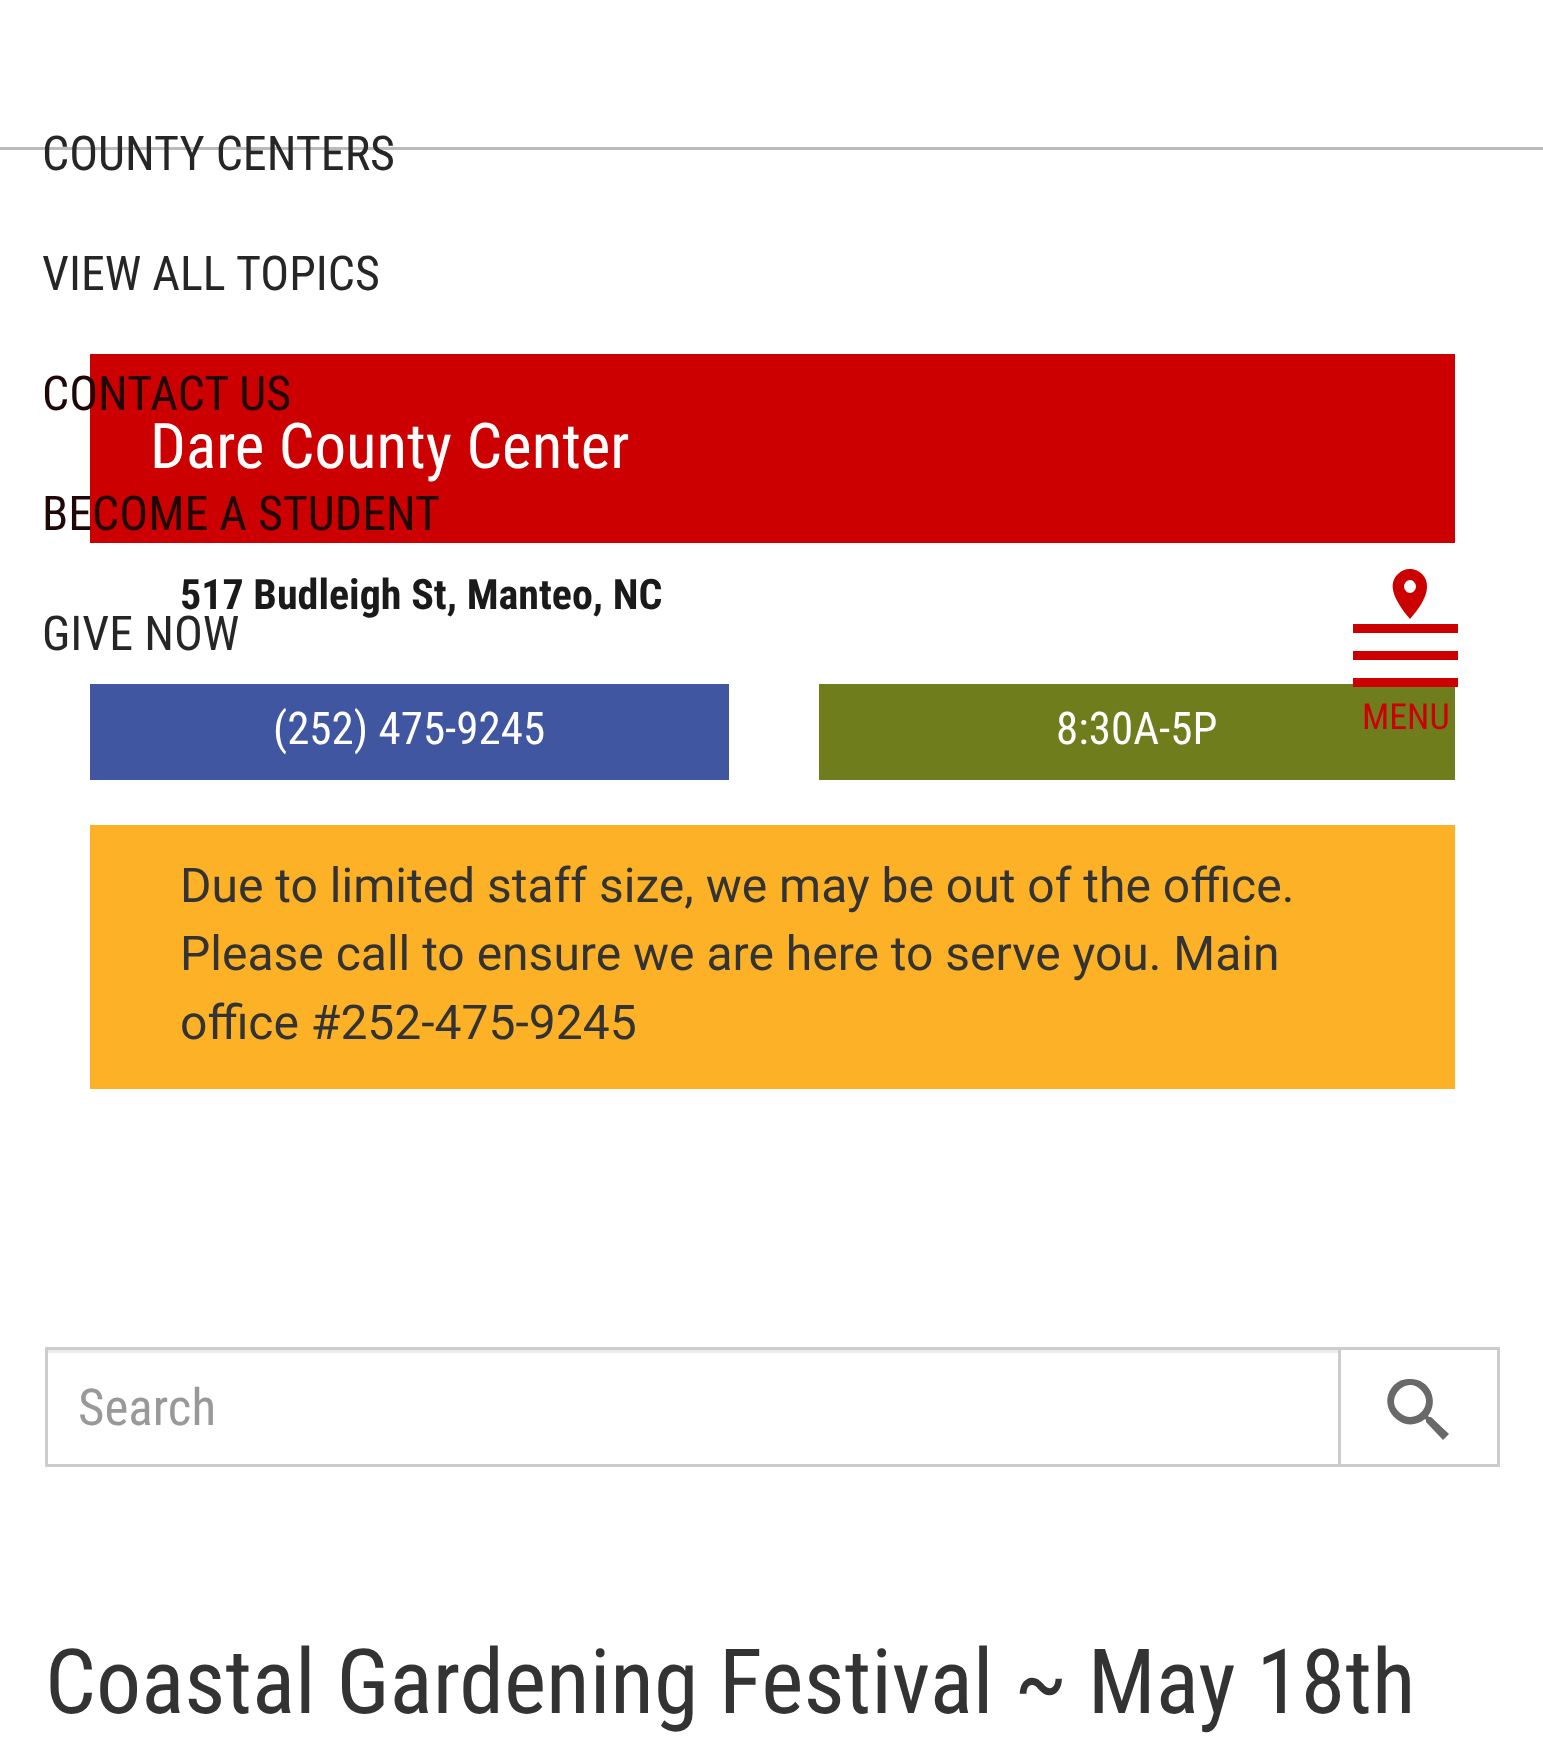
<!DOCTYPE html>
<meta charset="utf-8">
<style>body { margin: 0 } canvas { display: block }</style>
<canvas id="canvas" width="1543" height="1746"></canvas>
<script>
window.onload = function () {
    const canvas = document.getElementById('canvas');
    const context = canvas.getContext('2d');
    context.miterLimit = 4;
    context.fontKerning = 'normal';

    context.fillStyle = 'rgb(255, 255, 255)';
    context.fillRect(0, 0, 1543, 1746);
    context.fillStyle = 'rgb(187, 187, 187)';
    context.fillRect(0, 147, 1543, 3);
    context.fillStyle = 'rgb(204, 0, 0)';
    context.fillRect(1353, 624, 105, 9);
    context.fillRect(1353, 651, 105, 9);
    context.fillStyle = 'rgb(111, 125, 28)';
    context.fillRect(819, 684, 636, 96);
    context.fillStyle = 'rgb(204, 0, 0)';
    context.fillRect(1353, 678, 105, 9);
    context.fillRect(90, 354, 1365, 189);
    context.beginPath();
    context.moveTo(1406, 591);
    context.bezierCurveTo(1411, 597, 1420, 588, 1414, 582);
    context.bezierCurveTo(1409, 576, 1400, 585, 1406, 591);
    context.closePath();
    context.moveTo(1398, 574);
    context.bezierCurveTo(1409, 563, 1428, 572, 1427, 587);
    context.bezierCurveTo(1427, 598, 1417, 611, 1410, 619);
    context.bezierCurveTo(1401, 608, 1384, 587, 1398, 574);
    context.closePath();
    context.fill();
    context.fillStyle = 'rgb(65, 86, 161)';
    context.fillRect(90, 684, 639, 96);
    context.fillStyle = 'rgb(253, 177, 38)';
    context.fillRect(90, 825, 1365, 264);
    context.fillStyle = 'rgb(236, 236, 236)';
    context.fillRect(48, 1350, 1290, 3);
    context.strokeStyle = 'rgb(204, 204, 204)';
    context.lineWidth = 3;
    context.strokeRect(46.5, 1348.5, 1293, 117);
    context.strokeRect(1339.5, 1348.5, 159, 117);
    context.fillStyle = 'rgb(105, 105, 105)';
    context.beginPath();
    context.moveTo(1399, 1412);
    context.bezierCurveTo(1414, 1427, 1436, 1405, 1421, 1390);
    context.bezierCurveTo(1407, 1375, 1384, 1398, 1399, 1412);
    context.closePath();
    context.moveTo(1431, 1417);
    context.lineTo(1449, 1434);
    context.lineTo(1443, 1440);
    context.lineTo(1426, 1422);
    context.lineTo(1426, 1420);
    context.lineTo(1425, 1419);
    context.bezierCurveTo(1403, 1437, 1374, 1406, 1394, 1385);
    context.bezierCurveTo(1398, 1381, 1403, 1379, 1408, 1379);
    context.bezierCurveTo(1429, 1377, 1440, 1400, 1428, 1416);
    context.lineTo(1429, 1417);
    context.closePath();
    context.fill();
    context.font = '48px Roboto Condensed';
    context.fillStyle = 'rgb(38, 38, 38)';
    context.fillText('COUNTY CENTERS', 42, 170);
    context.fillText('VIEW ALL', 42, 290);
    context.fillText('TOPICS', 236, 290);
    context.fillStyle = 'rgb(32, 7, 7)';
    context.fillText('CONTACT US', 42, 410);
    context.fillText('BECOME A STUDENT', 42, 530);
    context.fillStyle = 'rgb(38, 38, 38)';
    context.fillText('GIVE NOW', 42, 650);
    context.font = '36px Roboto Condensed';
    context.fillStyle = 'rgb(204, 0, 0)';
    context.fillText('MENU', 1362, 729);
    context.font = '63px Roboto Condensed';
    context.fillStyle = 'rgb(255, 255, 255)';
    context.fillText('Dare County Center', 150, 468);
    context.font = 'bold 42px Roboto Condensed';
    context.fillStyle = 'rgb(26, 26, 26)';
    context.fillText('517 Budleigh St, Manteo, NC', 180, 609);
    context.font = '45px Roboto Condensed';
    context.fillStyle = 'rgb(255, 255, 255)';
    context.fillText('(252) 475-9245', 273, 744);
    context.fillText('8:30A-5P', 1056, 744);
    context.font = '48px Roboto';
    context.fillStyle = 'rgb(51, 51, 51)';
    context.fillText('Due to limited staff size, we may be out of the office.', 180, 902);
    context.fillText('Please call to ensure we are here to serve you. Main', 180, 970);
    context.fillText('office #252-475-9245', 180, 1039);
    context.font = '51px Roboto Condensed';
    context.fillStyle = 'rgb(153, 153, 153)';
    context.fillText('Search', 78, 1425);
    context.font = '90px Roboto Condensed';
    context.fillStyle = 'rgb(51, 51, 51)';
    context.fillText('Coastal Gardening Festival ~ May 18th', 45, 1713);
};
</script>
